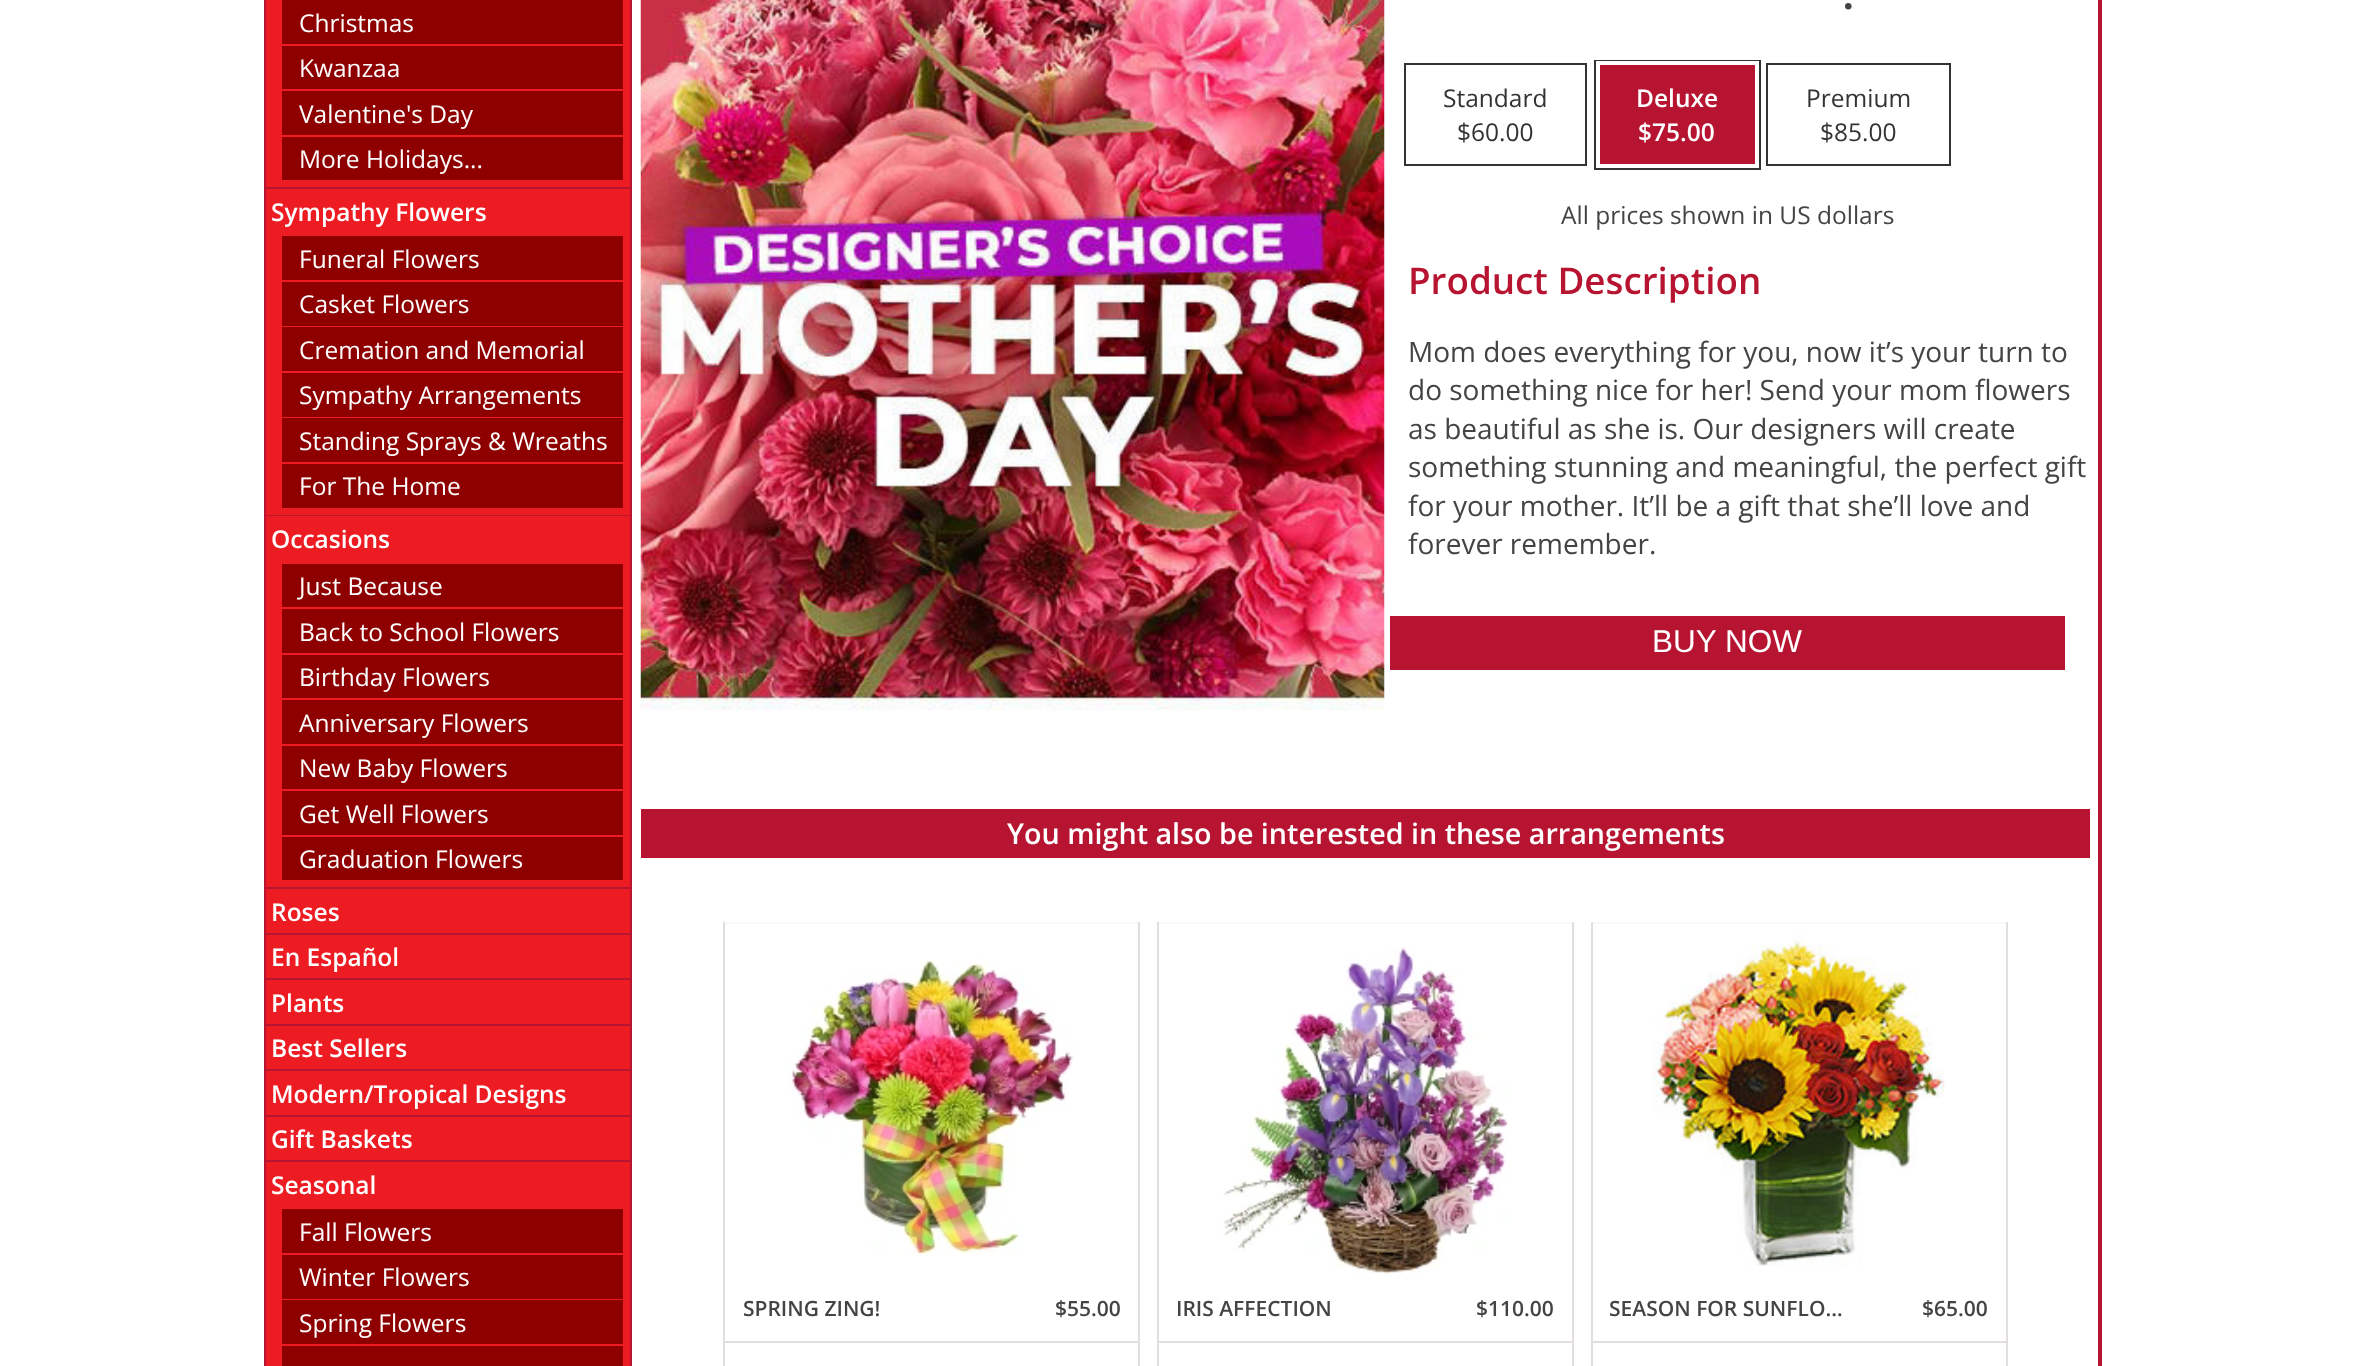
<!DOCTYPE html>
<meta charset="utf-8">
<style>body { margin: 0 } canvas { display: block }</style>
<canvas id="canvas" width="2365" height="1366"></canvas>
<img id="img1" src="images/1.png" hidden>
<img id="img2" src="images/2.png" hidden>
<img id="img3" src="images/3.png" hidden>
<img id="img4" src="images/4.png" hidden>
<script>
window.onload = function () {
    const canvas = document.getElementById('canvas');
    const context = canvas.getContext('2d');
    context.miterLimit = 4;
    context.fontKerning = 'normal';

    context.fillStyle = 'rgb(255, 255, 255)';
    context.fillRect(0, 0, 2365, 1366);
    context.fillStyle = 'rgb(183, 20, 49)';
    context.fillRect(264, 0, 1838, 1366);
    context.fillStyle = 'rgb(237, 28, 34)';
    context.fillRect(266, 0, 364, 187);
    context.fillStyle = 'rgb(142, 0, 0)';
    context.fillRect(282, 0, 341, 44);
    context.fillRect(282, 46, 341, 43);
    context.fillRect(282, 91, 341, 44);
    context.fillRect(282, 137, 341, 43);
    context.fillStyle = 'rgb(237, 28, 34)';
    context.fillRect(266, 189, 364, 326);
    context.fillStyle = 'rgb(142, 0, 0)';
    context.fillRect(282, 236, 341, 44);
    context.fillRect(282, 282, 341, 44);
    context.fillRect(282, 327, 341, 44);
    context.fillRect(282, 373, 341, 44);
    context.fillRect(282, 418, 341, 44);
    context.fillRect(282, 464, 341, 44);
    context.fillStyle = 'rgb(237, 28, 34)';
    context.fillRect(266, 516, 364, 371);
    context.fillStyle = 'rgb(142, 0, 0)';
    context.fillRect(282, 564, 341, 43);
    context.fillRect(282, 609, 341, 44);
    context.fillRect(282, 655, 341, 43);
    context.fillRect(282, 700, 341, 44);
    context.fillRect(282, 746, 341, 43);
    context.fillRect(282, 791, 341, 44);
    context.fillRect(282, 837, 341, 43);
    context.fillStyle = 'rgb(237, 28, 34)';
    context.fillRect(266, 889, 364, 44);
    context.fillRect(266, 935, 364, 43);
    context.fillRect(266, 980, 364, 44);
    context.fillRect(266, 1026, 364, 43);
    context.fillRect(266, 1071, 364, 44);
    context.fillRect(266, 1117, 364, 43);
    context.fillRect(266, 1162, 364, 204);
    context.fillStyle = 'rgb(142, 0, 0)';
    context.fillRect(282, 1209, 341, 44);
    context.fillRect(282, 1255, 341, 44);
    context.fillRect(282, 1300, 341, 44);
    context.fillRect(282, 1346, 341, 20);
    context.fillStyle = 'rgb(255, 255, 255)';
    context.fillRect(632, 0, 1466, 1366);
    context.drawImage(document.getElementById('img1'), 640, 0, 745, 711);
    context.strokeStyle = 'rgb(51, 51, 51)';
    context.lineWidth = 2;
    context.strokeRect(1405, 64, 181, 101);
    context.strokeRect(1595, 61, 165, 108);
    context.fillStyle = 'rgb(183, 20, 49)';
    context.beginPath();
    context.rect(1598, 63, 159, 103);
    context.fill();
    context.strokeStyle = 'rgb(255, 255, 255)';
    context.lineWidth = 4;
    context.stroke();
    context.strokeStyle = 'rgb(51, 51, 51)';
    context.lineWidth = 2;
    context.strokeRect(1767, 64, 183, 101);
    context.fillRect(1390, 616, 675, 54);
    context.fillRect(641, 809, 1449, 49);
    context.fillStyle = 'rgb(249, 249, 249)';
    context.fillRect(723, 922, 416, 2);
    context.fillStyle = 'rgb(226, 222, 221)';
    context.fillRect(1138, 922, 2, 444);
    context.fillRect(723, 922, 2, 444);
    context.drawImage(document.getElementById('img2'), 786, 959, 288, 296);
    context.fillRect(725, 1341, 413, 2);
    context.fillStyle = 'rgb(249, 249, 249)';
    context.fillRect(1157, 922, 416, 2);
    context.fillStyle = 'rgb(226, 222, 221)';
    context.fillRect(1572, 922, 2, 444);
    context.fillRect(1157, 922, 2, 444);
    context.drawImage(document.getElementById('img3'), 1223, 947, 287, 333);
    context.fillRect(1159, 1341, 413, 2);
    context.fillStyle = 'rgb(249, 249, 249)';
    context.fillRect(1591, 922, 416, 2);
    context.fillStyle = 'rgb(226, 222, 221)';
    context.fillRect(2006, 922, 2, 444);
    context.fillRect(1591, 922, 2, 444);
    context.drawImage(document.getElementById('img4'), 1652, 930, 293, 336);
    context.fillRect(1593, 1341, 413, 2);
    context.font = '24.5px Open Sans';
    context.fillStyle = 'rgb(255, 255, 255)';
    context.fillText('Christmas', 299, 32);
    context.fillText('Kwanzaa', 299, 77);
    context.fillText('Valentine\'s Day', 299, 123);
    context.fillText('More Holidays...', 299, 168);
    context.font = '600 24.5px Open Sans';
    context.fillText('Sympathy Flowers', 271, 221);
    context.font = '24.5px Open Sans';
    context.fillText('Funeral Flowers', 299, 268);
    context.fillText('Casket Flowers', 299, 313);
    context.fillText('Cremation and Memorial', 299, 359);
    context.fillText('Sympathy Arrangements', 299, 404);
    context.fillText('Standing Sprays & Wreaths', 299, 450);
    context.fillText('For The Home', 299, 495);
    context.font = '600 24.5px Open Sans';
    context.fillText('Occasions', 271, 548);
    context.font = '24.5px Open Sans';
    context.fillText('Just Because', 299, 595);
    context.fillText('Back to School Flowers', 299, 641);
    context.fillText('Birthday Flowers', 299, 686);
    context.fillText('Anniversary Flowers', 299, 732);
    context.fillText('New Baby Flowers', 299, 777);
    context.fillText('Get Well Flowers', 299, 823);
    context.fillText('Graduation Flowers', 299, 868);
    context.font = '600 24.5px Open Sans';
    context.fillText('Roses', 271, 921);
    context.fillText('En Español', 271, 966);
    context.fillText('Plants', 271, 1012);
    context.fillText('Best Sellers', 271, 1057);
    context.fillText('Modern/Tropical Designs', 271, 1103);
    context.fillText('Gift Baskets', 271, 1148);
    context.fillText('Seasonal', 271, 1194);
    context.font = '24.5px Open Sans';
    context.fillText('Fall Flowers', 299, 1241);
    context.fillText('Winter Flowers', 299, 1286);
    context.fillText('Spring Flowers', 299, 1332);
    context.font = '600 46px Open Sans';
    context.fillStyle = 'rgb(68, 68, 68)';
    context.fillText('.', 1842, 9);
    context.font = '24.5px Open Sans';
    context.fillStyle = 'rgb(51, 51, 51)';
    context.fillText('Standard', 1443, 107);
    context.fillText('$60.00', 1457, 141);
    context.font = '600 24.5px Open Sans';
    context.fillStyle = 'rgb(255, 255, 255)';
    context.fillText('Deluxe', 1636, 107);
    context.fillText('$75.00', 1638, 141);
    context.font = '24.5px Open Sans';
    context.fillStyle = 'rgb(51, 51, 51)';
    context.fillText('Premium', 1806, 107);
    context.fillText('$85.00', 1820, 141);
    context.fillStyle = 'rgb(68, 68, 68)';
    context.fillText('All prices shown in US dollars', 1561, 224);
    context.font = '600 36.75px Open Sans';
    context.fillStyle = 'rgb(183, 20, 49)';
    context.fillText('Product Description', 1408, 294);
    context.font = '28px Open Sans';
    context.fillStyle = 'rgb(68, 68, 68)';
    context.fillText('Mom does everything for you, now it’s your turn to', 1408, 362);
    context.fillText('do something nice for her! Send your mom flowers', 1408, 400);
    context.fillText('as beautiful as she is. Our designers will create', 1408, 439);
    context.fillText('something stunning and meaningful, the perfect gift', 1408, 477);
    context.fillText('for your mother. It’ll be a gift that she’ll love and', 1408, 516);
    context.fillText('forever remember.', 1408, 554);
    context.font = '31.5px Liberation Sans';
    context.fillStyle = 'rgb(255, 255, 255)';
    context.fillText('BUY NOW', 1652, 652);
    context.font = '600 28.7px Open Sans';
    context.fillText('You might also be interested in these arrangements', 1007, 844);
    context.font = '600 21px Open Sans';
    context.fillStyle = 'rgb(68, 68, 68)';
    context.fillText('SPRING ZING!', 743, 1316);
    context.fillText('$55.00', 1055, 1316);
    context.fillText('IRIS AFFECTION', 1176, 1316);
    context.fillText('$110.00', 1476, 1316);
    context.fillText('SEASON FOR SUNFLO…', 1609, 1316);
    context.fillText('$65.00', 1922, 1316);
};
</script>
